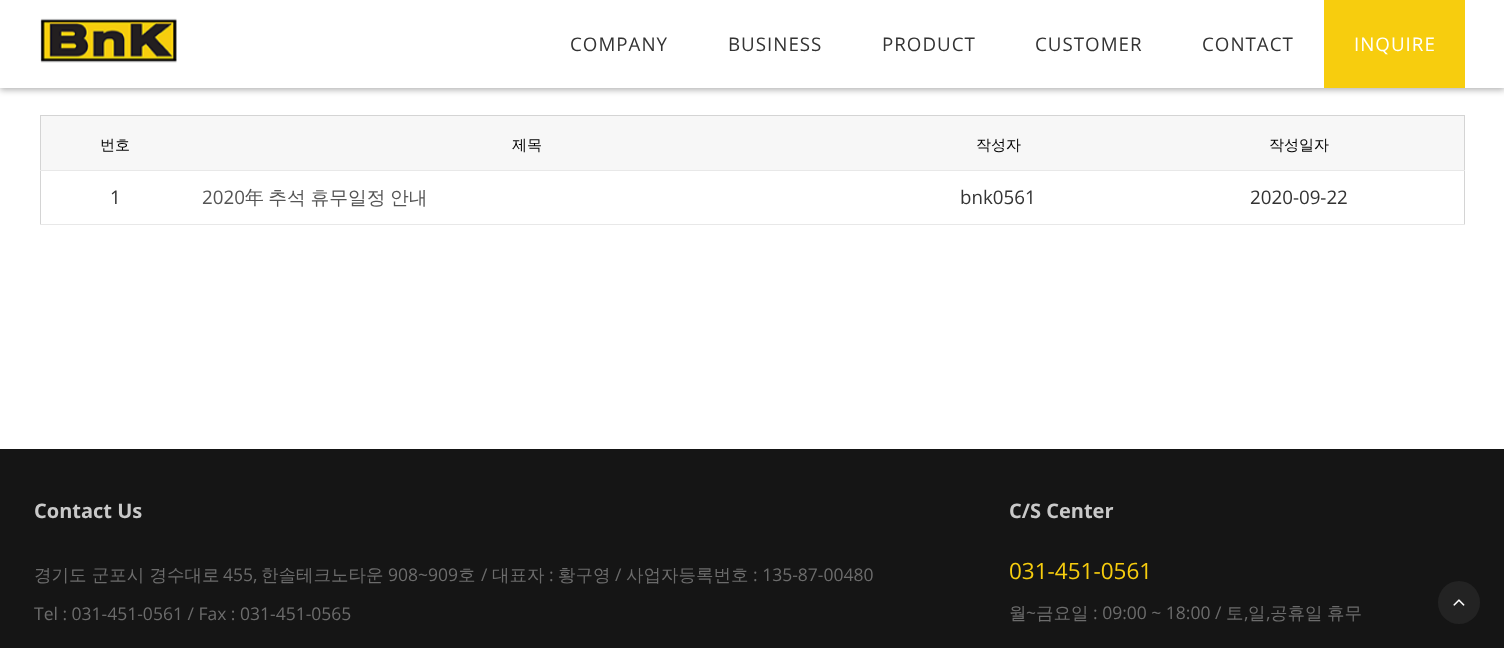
<!DOCTYPE html>
<meta charset="utf-8">
<style>body { margin: 0 } canvas { display: block }</style>
<canvas id="canvas" width="1504" height="648"></canvas>
<img id="img1" src="images/1.png" hidden>
<img id="img2" src="images/2.png" hidden>
<script>
window.onload = function () {
    const canvas = document.getElementById('canvas');
    const context = canvas.getContext('2d');
    context.miterLimit = 4;
    context.fontKerning = 'normal';

    context.fillStyle = 'rgb(255, 255, 255)';
    context.fillRect(0, 0, 1504, 648);
    context.fillStyle = 'rgba(0, 0, 0, 0.3)';
    context.filter = 'blur(3px)';
    context.beginPath();
    context.rect(0, 3, 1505, 87);
    context.fill();
    context.filter = 'none';
    context.fillStyle = 'rgb(255, 255, 255)';
    context.fillRect(0, 0, 1504, 88);
    context.drawImage(document.getElementById('img1'), 40, 18, 137, 45);
    context.fillStyle = 'rgb(247, 205, 14)';
    context.fillRect(1324, 0, 141, 88);
    context.fillStyle = 'rgb(212, 212, 212)';
    context.fillRect(40, 115, 1425, 1);
    context.fillRect(1464, 115, 1, 110);
    context.fillRect(40, 115, 1, 110);
    context.fillStyle = 'rgb(247, 247, 247)';
    context.fillRect(41, 116, 1423, 54);
    context.fillStyle = 'rgb(232, 232, 232)';
    context.fillRect(40, 170, 1425, 1);
    context.fillRect(40, 224, 1425, 1);
    context.fillStyle = 'rgb(21, 21, 21)';
    context.fillRect(0, 449, 1504, 199);
    context.fillStyle = 'rgb(35, 35, 35)';
    context.beginPath();
    context.roundRect(1438, 581, 42, 43, 21);
    context.fill();
    context.drawImage(document.getElementById('img2'), 1453, 599, 12, 7);
    context.letterSpacing = '1px';
    context.font = '18.75px Open Sans';
    context.fillStyle = 'rgb(51, 51, 51)';
    context.fillText('COMPANY', 570, 51);
    context.fillText('BUSINESS', 728, 51);
    context.fillText('PRODUCT', 882, 51);
    context.fillText('CUSTOMER', 1035, 51);
    context.fillText('CONTACT', 1202, 51);
    context.fillStyle = 'rgb(255, 255, 255)';
    context.fillText('INQUIRE', 1354, 51);
    context.letterSpacing = '0px';
    context.font = '500 15px WenQuanYi Zen Hei';
    context.fillStyle = 'rgb(0, 0, 0)';
    context.fillText('번호', 100, 150);
    context.fillText('제목', 512, 150);
    context.fillText('작성자', 976, 150);
    context.fillText('작성일자', 1269, 150);
    context.font = '18.75px Open Sans';
    context.fillStyle = 'rgb(51, 51, 51)';
    context.fillText('1', 110, 204);
    context.fillStyle = 'rgb(85, 85, 85)';
    context.fillText('2020', 202, 204);
    context.wordSpacing = '-1px';
    context.font = '500 18.75px WenQuanYi Zen Hei';
    context.fillText('年 추석 휴무일정 안내', 245, 204);
    context.wordSpacing = '0px';
    context.font = '18.75px Open Sans';
    context.fillStyle = 'rgb(51, 51, 51)';
    context.fillText('bnk0561', 960, 204);
    context.fillText('2020-09-22', 1250, 204);
    context.font = 'bold 20px Open Sans';
    context.fillStyle = 'rgb(201, 201, 201)';
    context.fillText('Contact Us', 34, 518);
    context.font = '500 17.5px WenQuanYi Zen Hei';
    context.fillStyle = 'rgb(108, 108, 108)';
    context.fillText('경기도 군포시 경수대로', 34, 581);
    context.font = '17.5px Open Sans';
    context.fillText('455,', 223, 581);
    context.font = '500 17.5px WenQuanYi Zen Hei';
    context.fillText('한솔테크노타운', 261, 581);
    context.font = '17.5px Open Sans';
    context.fillText('908~909', 388, 581);
    context.font = '500 17.5px WenQuanYi Zen Hei';
    context.fillText('호', 458, 581);
    context.font = '17.5px Open Sans';
    context.fillText('/', 481, 581);
    context.font = '500 17.5px WenQuanYi Zen Hei';
    context.fillText('대표자', 492, 581);
    context.font = '17.5px Open Sans';
    context.fillText(':', 549, 581);
    context.font = '500 17.5px WenQuanYi Zen Hei';
    context.fillText('황구영', 558, 581);
    context.font = '17.5px Open Sans';
    context.fillText('/', 615, 581);
    context.font = '500 17.5px WenQuanYi Zen Hei';
    context.fillText('사업자등록번호', 626, 581);
    context.font = '17.5px Open Sans';
    context.fillText(': 135-87-00480', 753, 581);
    context.fillText('Tel : 031-451-0561 / Fax : 031-451-0565', 34, 620);
    context.font = 'bold 20px Open Sans';
    context.fillStyle = 'rgb(201, 201, 201)';
    context.fillText('C/S Center', 1009, 518);
    context.font = '22.5px Open Sans';
    context.fillStyle = 'rgb(247, 205, 14)';
    context.fillText('031-451-0561', 1009, 579);
    context.font = '500 17.5px WenQuanYi Zen Hei';
    context.fillStyle = 'rgb(108, 108, 108)';
    context.fillText('월', 1009, 619);
    context.font = '17.5px Open Sans';
    context.fillText('~', 1026, 619);
    context.font = '500 17.5px WenQuanYi Zen Hei';
    context.fillText('금요일', 1036, 619);
    context.font = '17.5px Open Sans';
    context.fillText(': 09:00 ~ 18:00 /', 1093, 619);
    context.font = '500 17.5px WenQuanYi Zen Hei';
    context.fillText('토', 1226, 619);
    context.fillText('일', 1248, 619);
    context.fillText('공휴일', 1270, 619);
    context.fillText('휴무', 1327, 619);
    context.font = '17.5px Open Sans';
    context.fillText(',', 1244, 619);
    context.fillText(',', 1266, 619);
};
</script>
